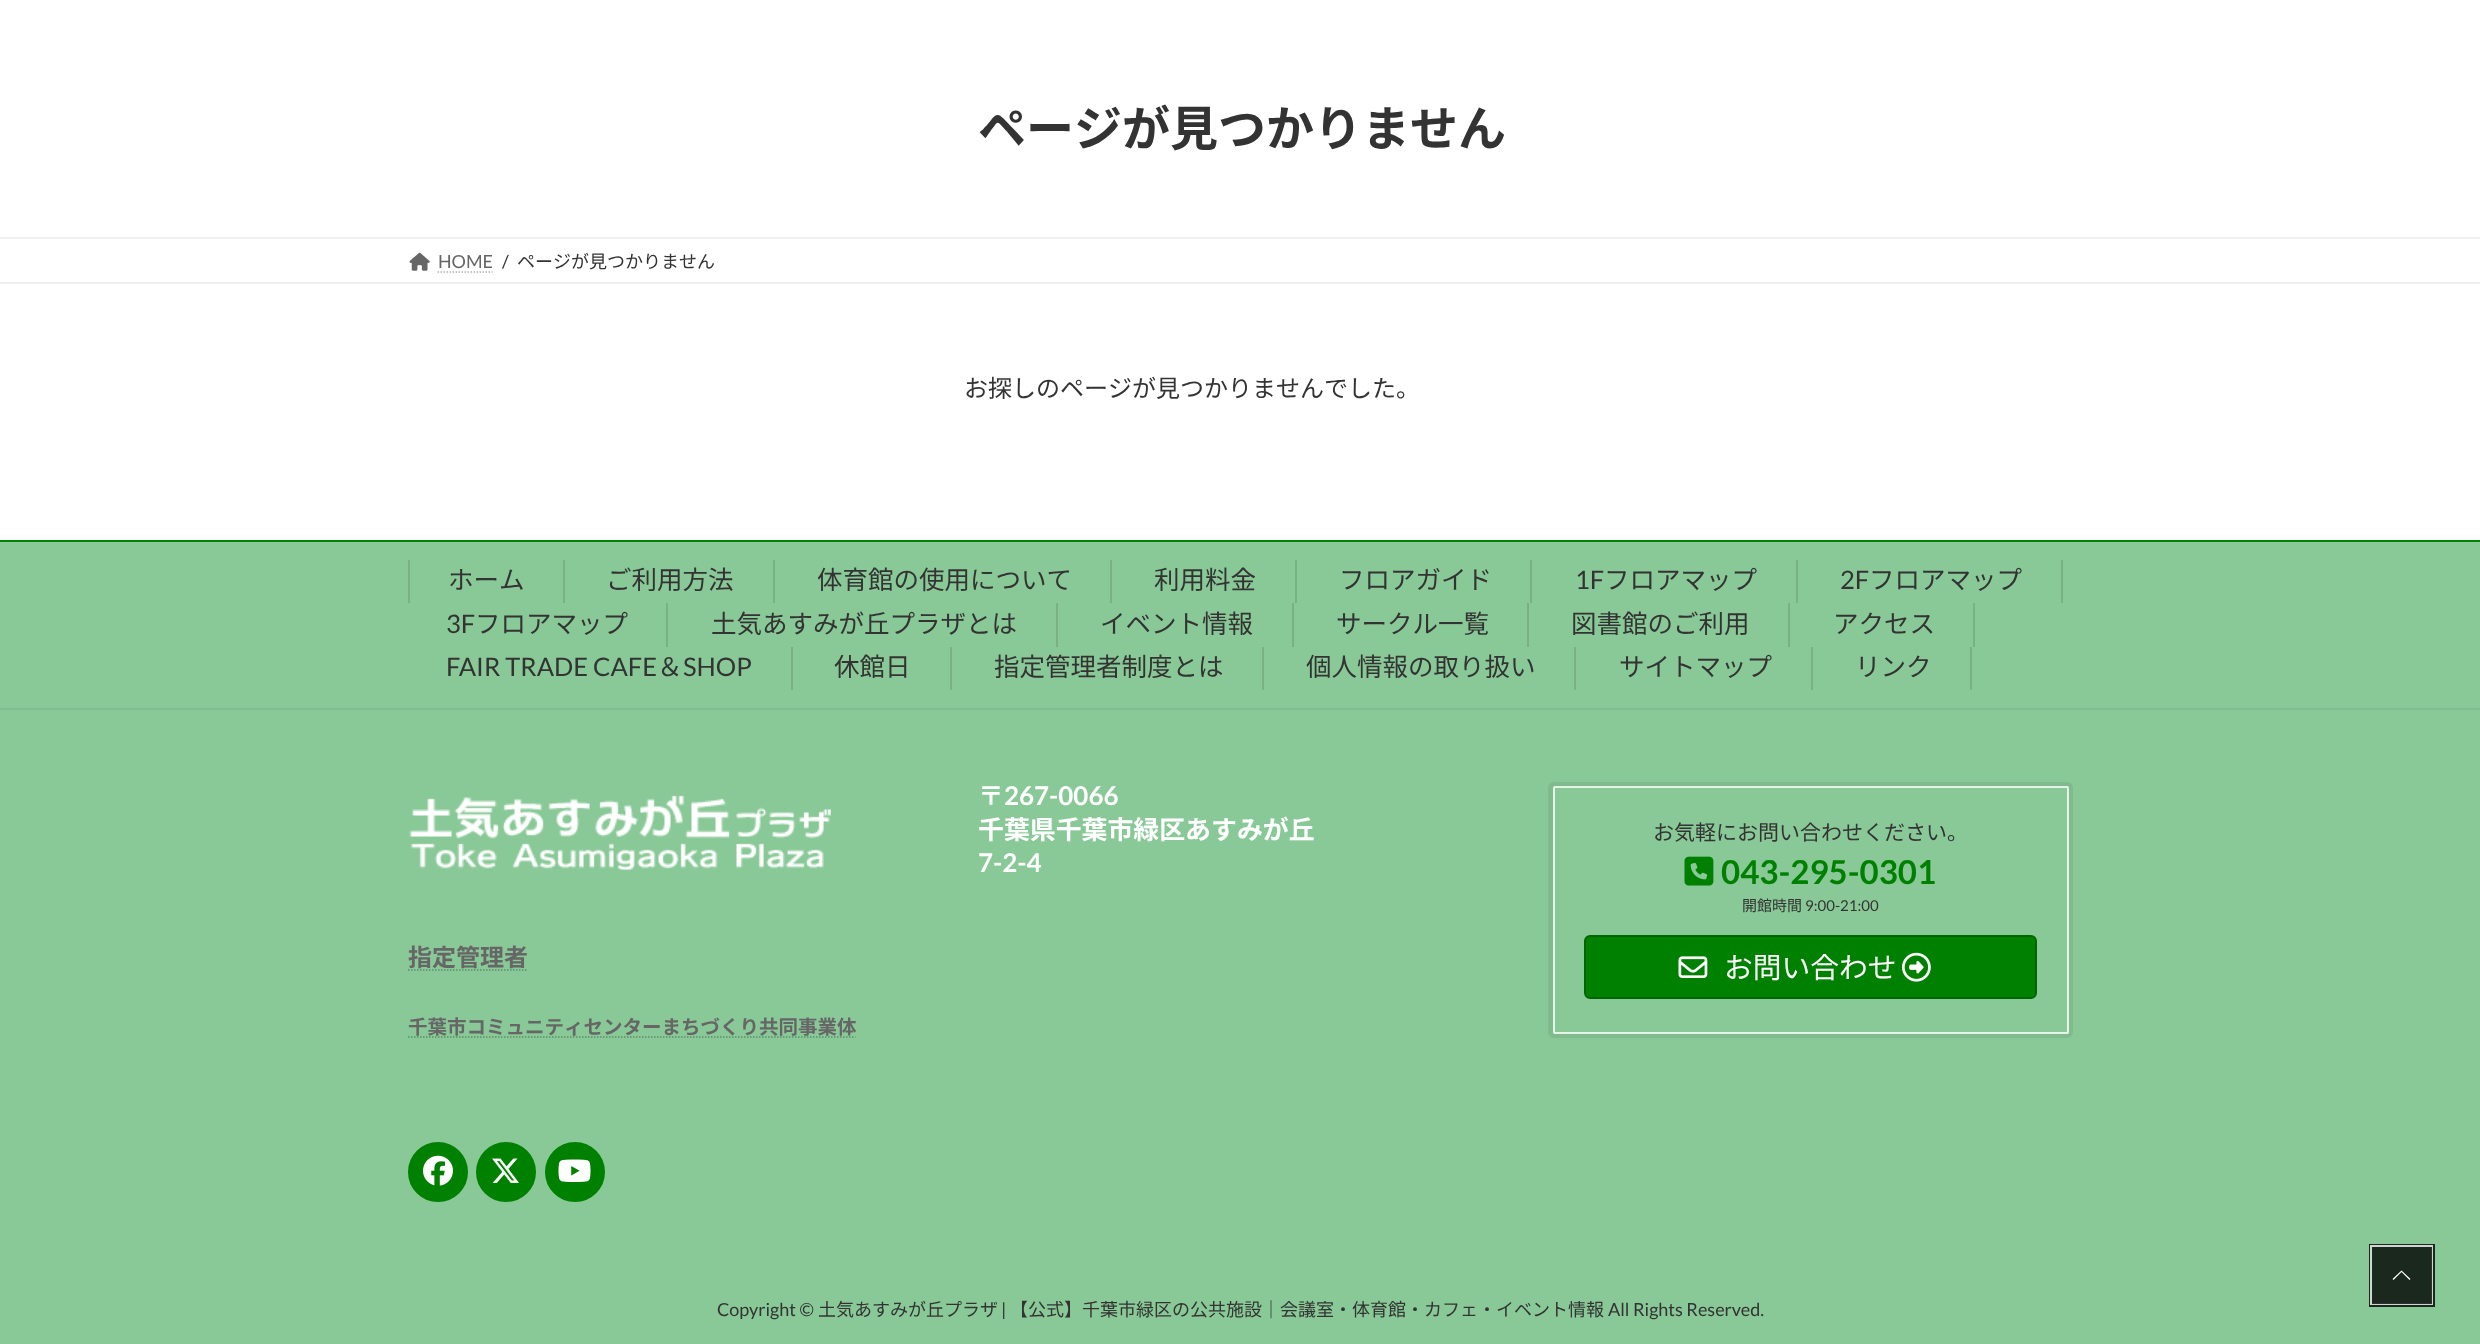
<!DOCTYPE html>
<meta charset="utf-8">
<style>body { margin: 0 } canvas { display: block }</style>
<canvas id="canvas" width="2480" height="1344"></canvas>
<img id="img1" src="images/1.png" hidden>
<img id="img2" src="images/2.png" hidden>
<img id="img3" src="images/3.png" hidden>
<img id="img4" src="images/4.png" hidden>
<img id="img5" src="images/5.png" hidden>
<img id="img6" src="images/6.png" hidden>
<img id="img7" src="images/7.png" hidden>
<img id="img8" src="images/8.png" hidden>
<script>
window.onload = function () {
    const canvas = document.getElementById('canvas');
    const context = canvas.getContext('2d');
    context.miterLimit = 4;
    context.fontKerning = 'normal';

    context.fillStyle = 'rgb(255, 255, 255)';
    context.fillRect(0, 0, 2480, 1344);
    context.fillStyle = 'rgb(240, 240, 240)';
    context.fillRect(0, 237, 2480, 2);
    context.fillRect(0, 282, 2480, 2);
    context.drawImage(document.getElementById('img1'), 409, 252, 21, 19);
    context.beginPath();
    context.moveTo(437.5, 272);
    context.lineTo(492.5, 272);
    context.strokeStyle = 'rgb(179, 179, 179)';
    context.lineWidth = 1.5;
    context.setLineDash([1.5, 1.5]);
    context.stroke();
    context.fillStyle = 'rgb(137, 201, 151)';
    context.fillRect(0, 542, 2480, 802);
    context.fillStyle = 'rgb(0, 128, 0)';
    context.fillRect(0, 540, 2480, 2);
    context.fillStyle = 'rgb(129, 189, 142)';
    context.fillRect(0, 708, 2480, 2);
    context.fillStyle = 'rgb(121, 177, 133)';
    context.fillRect(563, 560, 2, 43);
    context.fillRect(408, 560, 2, 43);
    context.fillRect(773, 560, 2, 43);
    context.fillRect(1110, 560, 2, 43);
    context.fillRect(1295, 560, 2, 43);
    context.fillRect(1530, 560, 2, 43);
    context.fillRect(1796, 560, 2, 43);
    context.fillRect(2061, 560, 2, 43);
    context.fillRect(666, 603, 2, 44);
    context.fillRect(1056, 603, 2, 44);
    context.fillRect(1292, 603, 2, 44);
    context.fillRect(1527, 603, 2, 44);
    context.fillRect(1788, 603, 2, 44);
    context.fillRect(1973, 603, 2, 44);
    context.fillRect(791, 647, 2, 43);
    context.fillRect(950, 647, 2, 43);
    context.fillRect(1262, 647, 2, 43);
    context.fillRect(1574, 647, 2, 43);
    context.fillRect(1811, 647, 2, 43);
    context.fillRect(1970, 647, 2, 43);
    context.beginPath();
    context.roundRect(1550.5, 784.5, 520, 251, 3.5);
    context.strokeStyle = 'rgb(127, 187, 140)';
    context.lineWidth = 5;
    context.setLineDash([]);
    context.stroke();
    context.fillStyle = 'rgba(255, 255, 255, 0.8)';
    context.beginPath();
    context.moveTo(1554, 786);
    context.bezierCurveTo(1554, 786, 1553, 787, 1553, 788);
    context.lineTo(1553, 1032);
    context.bezierCurveTo(1553, 1033, 1554, 1034, 1554, 1034);
    context.lineTo(2068, 1034);
    context.bezierCurveTo(2068, 1034, 2069, 1033, 2069, 1032);
    context.lineTo(2069, 788);
    context.bezierCurveTo(2069, 787, 2068, 786, 2068, 786);
    context.closePath();
    context.moveTo(1555, 788);
    context.lineTo(1555, 1032);
    context.lineTo(2067, 1032);
    context.lineTo(2067, 788);
    context.closePath();
    context.fill('evenodd');
    context.drawImage(document.getElementById('img2'), 1684, 856, 30, 30);
    context.fillStyle = 'rgb(0, 128, 0)';
    context.beginPath();
    context.roundRect(1585, 936, 451, 62, 5);
    context.fill();
    context.strokeStyle = 'rgb(0, 102, 0)';
    context.lineWidth = 2;
    context.stroke();
    context.drawImage(document.getElementById('img3'), 1678, 956, 30, 22);
    context.drawImage(document.getElementById('img4'), 1902, 952, 29, 30);
    context.drawImage(document.getElementById('img5'), 409, 795, 422, 76);
    context.beginPath();
    context.moveTo(408, 970);
    context.lineTo(528, 970);
    context.strokeStyle = 'rgb(96, 141, 106)';
    context.lineWidth = 1.5;
    context.setLineDash([1.5, 1.5]);
    context.stroke();
    context.beginPath();
    context.moveTo(408, 1037);
    context.lineTo(855.5, 1037);
    context.stroke();
    context.beginPath();
    context.arc(438, 1172, 29, 0, 2 * Math.PI);
    context.fill();
    context.strokeStyle = 'rgb(0, 128, 0)';
    context.lineWidth = 2;
    context.setLineDash([]);
    context.stroke();
    context.drawImage(document.getElementById('img6'), 423, 1155, 30, 31);
    context.beginPath();
    context.arc(506, 1172, 29, 0, 2 * Math.PI);
    context.fill();
    context.stroke();
    context.drawImage(document.getElementById('img7'), 492, 1158, 27, 25);
    context.beginPath();
    context.arc(575, 1172, 29, 0, 2 * Math.PI);
    context.fill();
    context.stroke();
    context.drawImage(document.getElementById('img8'), 558, 1159, 33, 23);
    context.strokeStyle = 'rgb(27, 40, 30)';
    context.lineWidth = 3;
    context.strokeRect(2370.5, 1245.5, 63, 60);
    context.strokeStyle = 'rgba(255, 255, 255, 0.8)';
    context.lineWidth = 2;
    context.strokeRect(2371, 1246, 61, 58);
    context.fillStyle = 'rgba(0, 0, 0, 0.8)';
    context.fillRect(2372, 1247, 60, 57);
    context.fillStyle = 'rgb(255, 255, 255)';
    context.beginPath();
    context.moveTo(2410.5, 1279);
    context.lineTo(2409.5, 1280);
    context.lineTo(2401.5, 1272);
    context.lineTo(2393.5, 1280);
    context.lineTo(2392.5, 1279);
    context.lineTo(2401.5, 1270.5);
    context.closePath();
    context.fill();
    context.font = 'bold 48px Noto Sans JP';
    context.fillStyle = 'rgb(51, 51, 51)';
    context.fillText('ページが見つかりません', 978, 146);
    context.font = '18px Lato';
    context.fillStyle = 'rgb(102, 102, 102)';
    context.fillText('HOME', 438, 268);
    context.fillStyle = 'rgb(51, 51, 51)';
    context.fillText('/', 502, 268);
    context.font = '18px Noto Sans JP';
    context.fillText('ページが見つかりません', 517, 268);
    context.font = '24px Noto Sans JP';
    context.fillText('お探しのページが見つかりませんでした。', 964, 397);
    context.font = '25.5px Noto Sans JP';
    context.fillText('ホーム', 448, 589);
    context.fillText('ご利用方法', 606, 589);
    context.fillText('体育館の使用について', 817, 589);
    context.fillText('利用料金', 1154, 589);
    context.fillText('フロアガイド', 1339, 589);
    context.font = '25.5px Lato';
    context.fillText('1F', 1575, 589);
    context.font = '25.5px Noto Sans JP';
    context.fillText('フロアマップ', 1604, 589);
    context.font = '25.5px Lato';
    context.fillText('2F', 1840, 589);
    context.font = '25.5px Noto Sans JP';
    context.fillText('フロアマップ', 1869, 589);
    context.font = '25.5px Lato';
    context.fillText('3F', 446, 633);
    context.font = '25.5px Noto Sans JP';
    context.fillText('フロアマップ', 475, 633);
    context.fillText('土気あすみが丘プラザとは', 711, 633);
    context.fillText('イベント情報', 1100, 633);
    context.fillText('サークル一覧', 1336, 633);
    context.fillText('図書館のご利用', 1571, 633);
    context.fillText('アクセス', 1833, 633);
    context.font = '25.5px Lato';
    context.fillText('FAIR TRADE CAFE', 446, 676);
    context.font = '25.5px Noto Sans JP';
    context.fillText('＆', 657, 676);
    context.font = '25.5px Lato';
    context.fillText('SHOP', 683, 676);
    context.font = '25.5px Noto Sans JP';
    context.fillText('休館日', 834, 676);
    context.fillText('指定管理者制度とは', 994, 676);
    context.fillText('個人情報の取り扱い', 1306, 676);
    context.fillText('サイトマップ', 1619, 676);
    context.fillText('リンク', 1855, 676);
    context.font = 'bold 25.9px Noto Sans JP';
    context.fillStyle = 'rgb(255, 255, 255)';
    context.fillText('〒', 978, 805);
    context.font = 'bold 25.9px Lato';
    context.fillText('267-0066', 1004, 805);
    context.font = 'bold 25.9px Noto Sans JP';
    context.fillText('千葉県千葉市緑区あすみが丘', 978, 839);
    context.font = 'bold 25.9px Lato';
    context.fillText('7-2-4', 978, 872);
    context.font = '21px Noto Sans JP';
    context.fillStyle = 'rgb(51, 51, 51)';
    context.fillText('お気軽にお問い合わせください。', 1653, 840);
    context.font = 'bold 33px Lato';
    context.fillStyle = 'rgb(0, 128, 0)';
    context.fillText('043-295-0301', 1721, 884);
    context.font = '15px Noto Sans JP';
    context.fillStyle = 'rgb(51, 51, 51)';
    context.fillText('開館時間', 1742, 911);
    context.font = '15px Lato';
    context.fillText('9:00-21:00', 1805, 911);
    context.font = '28.75px Noto Sans JP';
    context.fillStyle = 'rgb(255, 255, 255)';
    context.fillText('お問い合わせ', 1724, 978);
    context.font = 'bold 24px Noto Sans JP';
    context.fillStyle = 'rgb(102, 102, 102)';
    context.fillText('指定管理者', 408, 966);
    context.font = 'bold 19.5px Noto Sans JP';
    context.fillText('千葉市コミュニティセンターまちづくり共同事業体', 408, 1034);
    context.font = '18px Lato';
    context.fillStyle = 'rgb(51, 51, 51)';
    context.fillText('Copyright ©', 717, 1316);
    context.font = '18px Noto Sans JP';
    context.fillText('土気あすみが丘プラザ', 818, 1316);
    context.font = '18px Lato';
    context.fillText('|', 1001, 1316);
    context.font = '18px Noto Sans JP';
    context.fillText('【公式】千葉市緑区の公共施設｜会議室・体育館・カフェ・イベント情報', 1010, 1316);
    context.font = '18px Lato';
    context.fillText('All Rights Reserved.', 1608, 1316);
};
</script>
